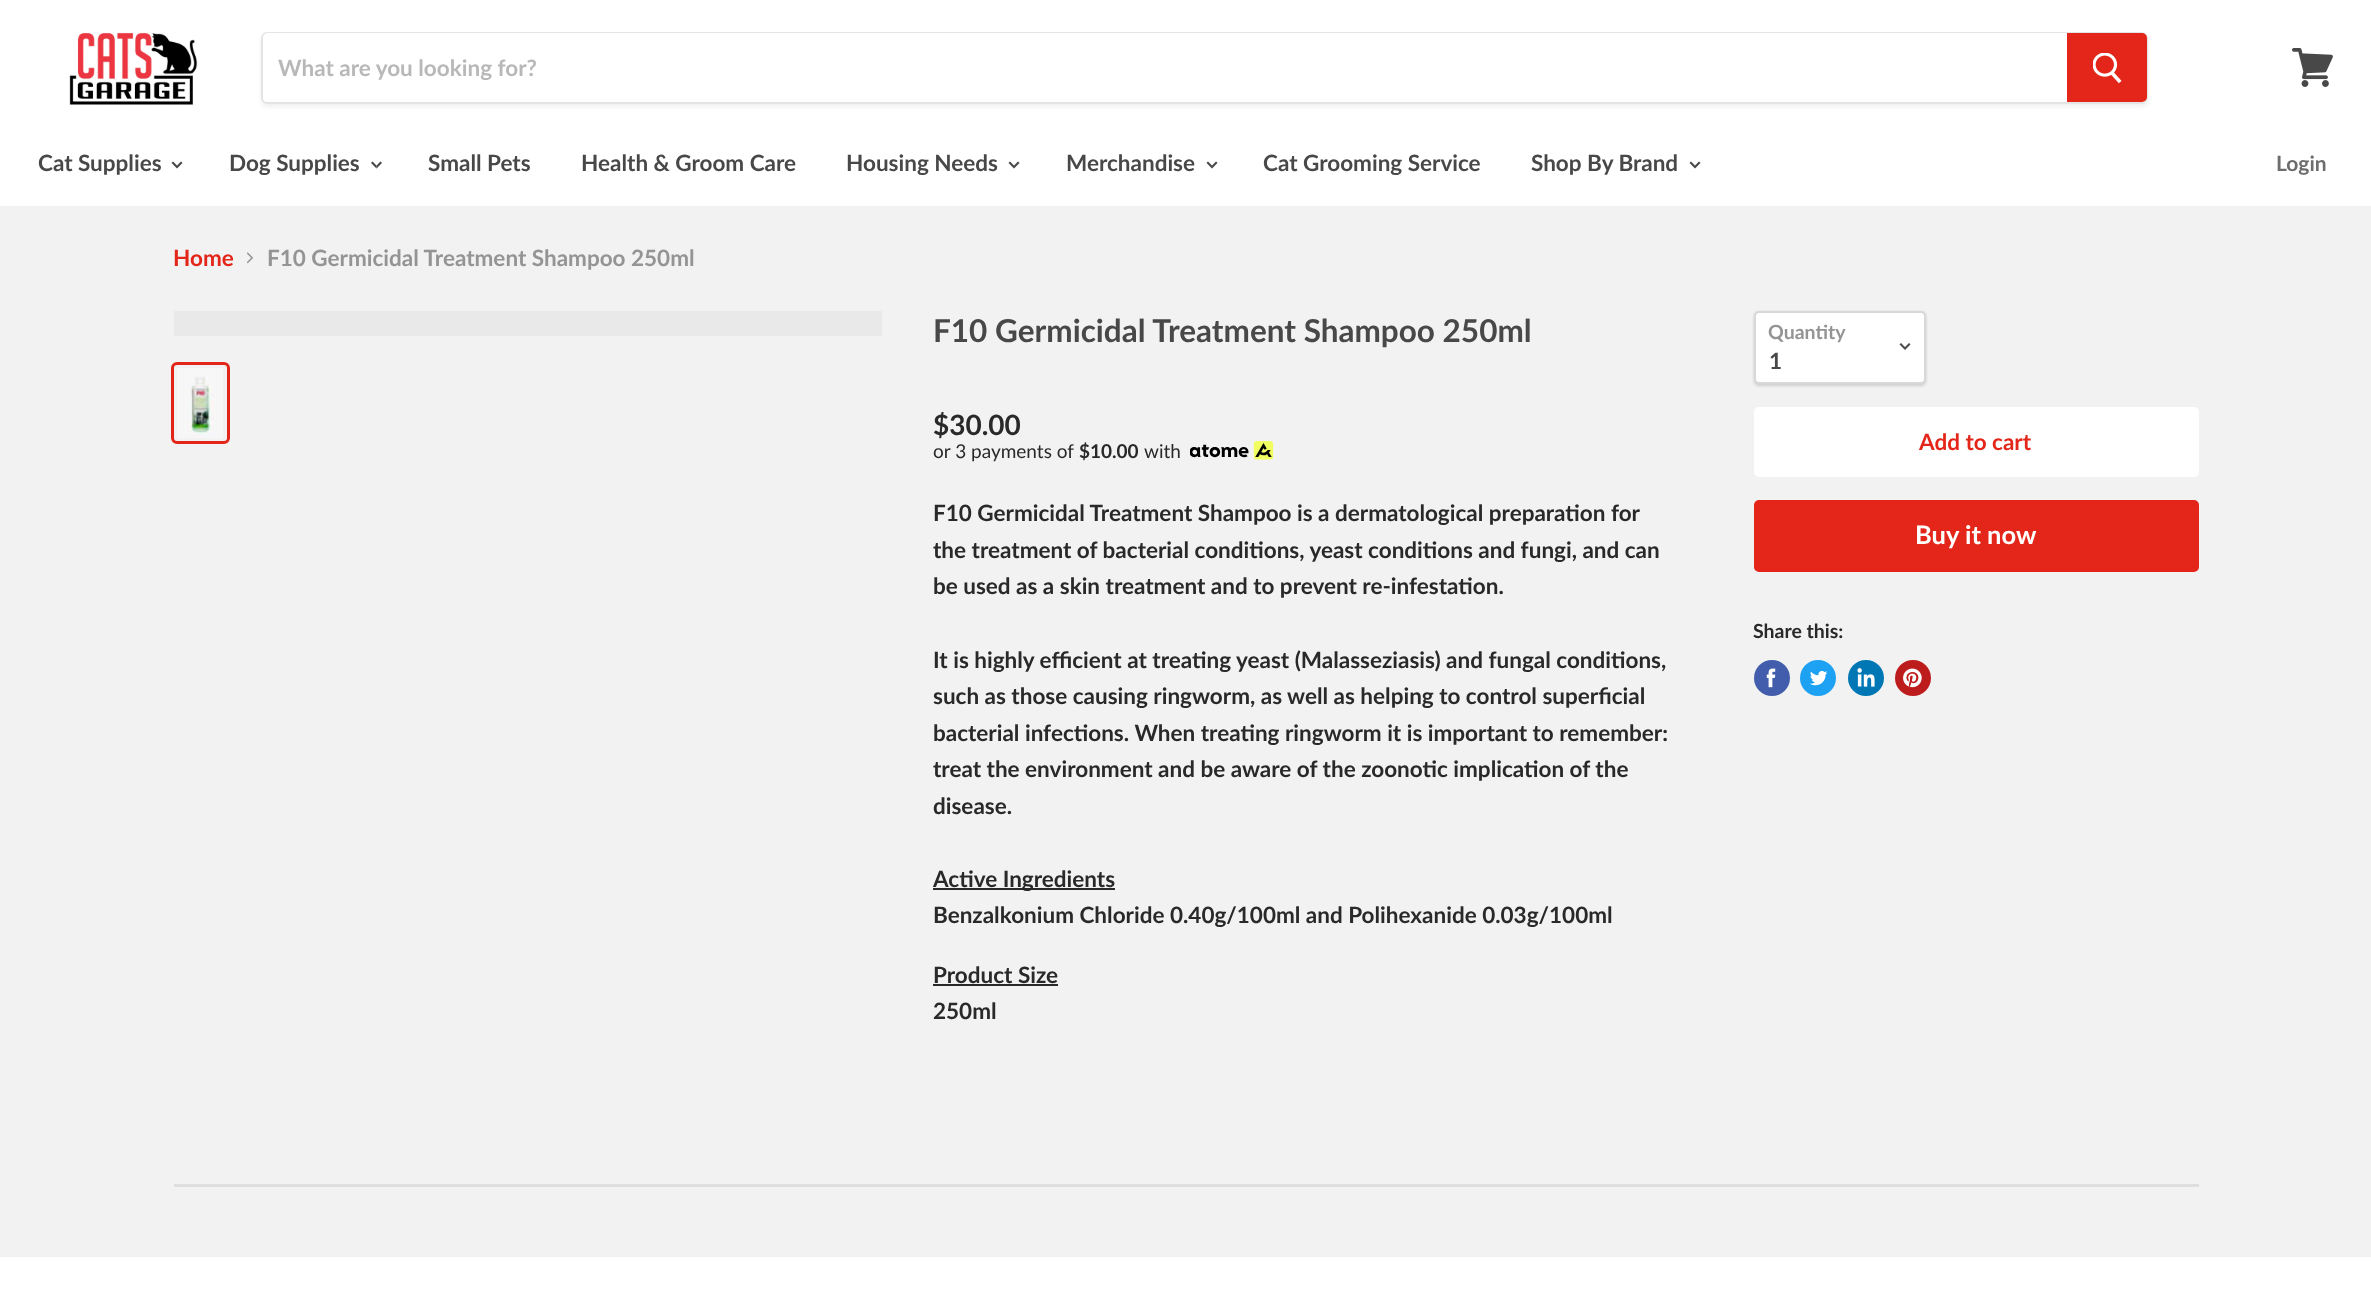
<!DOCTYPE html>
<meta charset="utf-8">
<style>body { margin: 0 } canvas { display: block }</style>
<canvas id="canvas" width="2371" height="1308"></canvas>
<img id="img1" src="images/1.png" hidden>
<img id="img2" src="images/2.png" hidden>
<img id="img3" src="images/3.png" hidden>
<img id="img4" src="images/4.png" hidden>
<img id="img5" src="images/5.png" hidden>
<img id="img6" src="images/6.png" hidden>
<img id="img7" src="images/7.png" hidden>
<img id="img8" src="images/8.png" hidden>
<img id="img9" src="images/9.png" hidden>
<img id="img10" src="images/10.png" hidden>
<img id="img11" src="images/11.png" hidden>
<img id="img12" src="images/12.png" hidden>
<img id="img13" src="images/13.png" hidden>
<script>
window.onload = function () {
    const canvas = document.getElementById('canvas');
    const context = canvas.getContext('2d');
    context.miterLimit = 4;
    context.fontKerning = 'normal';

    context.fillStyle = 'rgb(242, 242, 242)';
    context.fillRect(0, 0, 2371, 1308);
    context.fillStyle = 'rgb(255, 255, 255)';
    context.fillRect(0, 0, 2371, 206);
    context.drawImage(document.getElementById('img1'), 69, 32, 129, 73);
    context.save();
    context.beginPath();
    context.moveTo(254, 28);
    context.lineTo(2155, 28);
    context.lineTo(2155, 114);
    context.lineTo(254, 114);
    context.closePath();
    context.moveTo(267, 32);
    context.lineTo(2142, 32);
    context.bezierCurveTo(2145.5, 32, 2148, 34.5, 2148, 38);
    context.lineTo(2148, 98);
    context.bezierCurveTo(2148, 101.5, 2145.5, 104, 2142, 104);
    context.lineTo(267, 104);
    context.bezierCurveTo(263.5, 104, 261, 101.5, 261, 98);
    context.lineTo(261, 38);
    context.bezierCurveTo(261, 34.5, 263.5, 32, 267, 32);
    context.closePath();
    context.clip('evenodd');
    context.fillStyle = 'rgba(121, 121, 121, 0.11)';
    context.filter = 'blur(2px)';
    context.beginPath();
    context.roundRect(261, 35, 1887, 72, 6);
    context.fill();
    context.filter = 'none';
    context.restore();
    context.beginPath();
    context.roundRect(262, 33, 1885, 70, 5);
    context.strokeStyle = 'rgba(121, 121, 121, 0.2)';
    context.lineWidth = 2;
    context.stroke();
    context.beginPath();
    context.roundRect(263, 33, 1804, 69, [5, 0, 0, 5]);
    context.fill();
    context.fillStyle = 'rgb(227, 38, 25)';
    context.beginPath();
    context.roundRect(2068, 34, 78, 67, [0, 4, 4, 0]);
    context.fill();
    context.strokeStyle = 'rgb(227, 38, 25)';
    context.stroke();
    context.drawImage(document.getElementById('img2'), 2093, 53, 29, 31);
    context.drawImage(document.getElementById('img3'), 2292, 48, 41, 39);
    context.drawImage(document.getElementById('img4'), 171, 161, 12, 8);
    context.drawImage(document.getElementById('img5'), 371, 161, 11, 8);
    context.drawImage(document.getElementById('img4'), 1008, 161, 12, 8);
    context.drawImage(document.getElementById('img4'), 1206, 161, 12, 8);
    context.drawImage(document.getElementById('img4'), 1689, 161, 12, 8);
    context.drawImage(document.getElementById('img6'), 247, 252, 7, 12);
    context.fillStyle = 'rgb(233, 233, 233)';
    context.fillRect(174, 311, 708, 25);
    context.beginPath();
    context.roundRect(172.5, 363.5, 56, 79, 4.5);
    context.lineWidth = 3;
    context.stroke();
    context.drawImage(document.getElementById('img7'), 177, 368, 46, 70);
    context.drawImage(document.getElementById('img8'), 1190, 441, 84, 19);
    context.fillStyle = 'rgb(41, 41, 41)';
    context.fillRect(933, 888, 182, 2);
    context.fillRect(933, 984, 125, 2);
    context.fillStyle = 'rgba(0, 0, 0, 0.15)';
    context.filter = 'blur(1.5px)';
    context.beginPath();
    context.roundRect(1754, 312, 172, 74, 5);
    context.fill();
    context.filter = 'none';
    context.fillStyle = 'rgb(255, 255, 255)';
    context.beginPath();
    context.roundRect(1755, 312, 170, 71, 4);
    context.fill();
    context.strokeStyle = 'rgb(216, 216, 216)';
    context.lineWidth = 2;
    context.stroke();
    context.drawImage(document.getElementById('img9'), 1899, 343, 12, 7);
    context.beginPath();
    context.roundRect(1755, 408, 443, 68, 4);
    context.fill();
    context.strokeStyle = 'rgb(255, 255, 255)';
    context.stroke();
    context.fillStyle = 'rgb(227, 38, 25)';
    context.beginPath();
    context.roundRect(1755, 501, 443, 70, 4);
    context.fill();
    context.strokeStyle = 'rgb(227, 38, 25)';
    context.stroke();
    context.fillStyle = 'rgb(66, 93, 171)';
    context.beginPath();
    context.arc(1772, 678, 18, 0, 2 * Math.PI);
    context.fill();
    context.drawImage(document.getElementById('img10'), 1766, 668, 10, 20);
    context.fillStyle = 'rgb(29, 161, 242)';
    context.beginPath();
    context.arc(1818, 678, 18, 0, 2 * Math.PI);
    context.fill();
    context.drawImage(document.getElementById('img11'), 1810, 670, 18, 16);
    context.fillStyle = 'rgb(0, 119, 181)';
    context.beginPath();
    context.arc(1866, 678, 18, 0, 2 * Math.PI);
    context.fill();
    context.drawImage(document.getElementById('img12'), 1857, 668, 18, 19);
    context.fillStyle = 'rgb(189, 28, 28)';
    context.beginPath();
    context.arc(1913, 678, 18, 0, 2 * Math.PI);
    context.fill();
    context.drawImage(document.getElementById('img13'), 1903, 668, 19, 20);
    context.fillStyle = 'rgba(121, 121, 121, 0.16)';
    context.fillRect(174, 1184, 2025, 3);
    context.fillStyle = 'rgb(255, 255, 255)';
    context.fillRect(0, 1257, 2371, 51);
    context.font = 'bold 22.5px Lato';
    context.fillStyle = 'rgb(184, 184, 184)';
    context.fillText('What are you looking for?', 278, 76);
    context.fillStyle = 'rgb(72, 72, 72)';
    context.fillText('Cat Supplies', 38, 171);
    context.fillText('Dog Supplies', 229, 171);
    context.fillText('Small Pets', 428, 171);
    context.fillText('Health & Groom Care', 581, 171);
    context.fillText('Housing Needs', 846, 171);
    context.fillText('Merchandise', 1066, 171);
    context.fillText('Cat Grooming Service', 1263, 171);
    context.fillText('Shop By Brand', 1531, 171);
    context.font = 'bold 21px Lato';
    context.fillStyle = 'rgb(109, 109, 109)';
    context.fillText('Login', 2276, 171);
    context.font = 'bold 22.5px Lato';
    context.fillStyle = 'rgb(227, 38, 25)';
    context.fillText('Home', 173, 266);
    context.fillStyle = 'rgb(148, 148, 148)';
    context.fillText('F10 Germicidal Treatment Shampoo 250ml', 267, 266);
    context.font = 'bold 31.5px Lato';
    context.fillStyle = 'rgb(72, 72, 72)';
    context.fillText('F10 Germicidal Treatment Shampoo 250ml', 933, 342);
    context.font = 'bold 28px Lato';
    context.fillStyle = 'rgb(41, 41, 41)';
    context.fillText('$30.00', 933, 435);
    context.font = '19px Lato';
    context.fillText('or 3 payments of', 933, 458);
    context.font = 'bold 19px Lato';
    context.fillText('$10.00', 1079, 458);
    context.font = '19px Lato';
    context.fillText('with', 1144, 458);
    context.font = 'bold 22.5px Lato';
    context.fillText('F10 Germicidal Treatment Shampoo is a dermatological preparation for', 933, 521);
    context.fillText('the treatment of bacterial conditions, yeast conditions and fungi, and can', 933, 558);
    context.fillText('be used as a skin treatment and to prevent re-infestation.', 933, 594);
    context.fillText('It is highly efficient at treating yeast (Malasseziasis) and fungal conditions,', 933, 668);
    context.fillText('such as those causing ringworm, as well as helping to control superficial', 933, 704);
    context.fillText('bacterial infections. When treating ringworm it is important to remember:', 933, 741);
    context.fillText('treat the environment and be aware of the zoonotic implication of the', 933, 777);
    context.fillText('disease.', 933, 814);
    context.fillText('Active Ingredients', 933, 887);
    context.fillText('Benzalkonium Chloride 0.40g/100ml and Polihexanide 0.03g/100ml', 933, 923);
    context.fillText('Product Size', 933, 983);
    context.fillText('250ml', 933, 1019);
    context.font = 'bold 19.5px Lato';
    context.fillStyle = 'rgb(148, 148, 148)';
    context.fillText('Quantity', 1768, 339);
    context.font = 'bold 22.5px Lato';
    context.fillStyle = 'rgb(72, 72, 72)';
    context.fillText('1', 1769, 369);
    context.fillStyle = 'rgb(227, 38, 25)';
    context.fillText('Add to cart', 1919, 450);
    context.font = 'bold 25.5px Lato';
    context.fillStyle = 'rgb(255, 255, 255)';
    context.fillText('Buy it now', 1915, 544);
    context.font = 'bold 19.5px Lato';
    context.fillStyle = 'rgb(41, 41, 41)';
    context.fillText('Share this:', 1753, 638);
};
</script>
